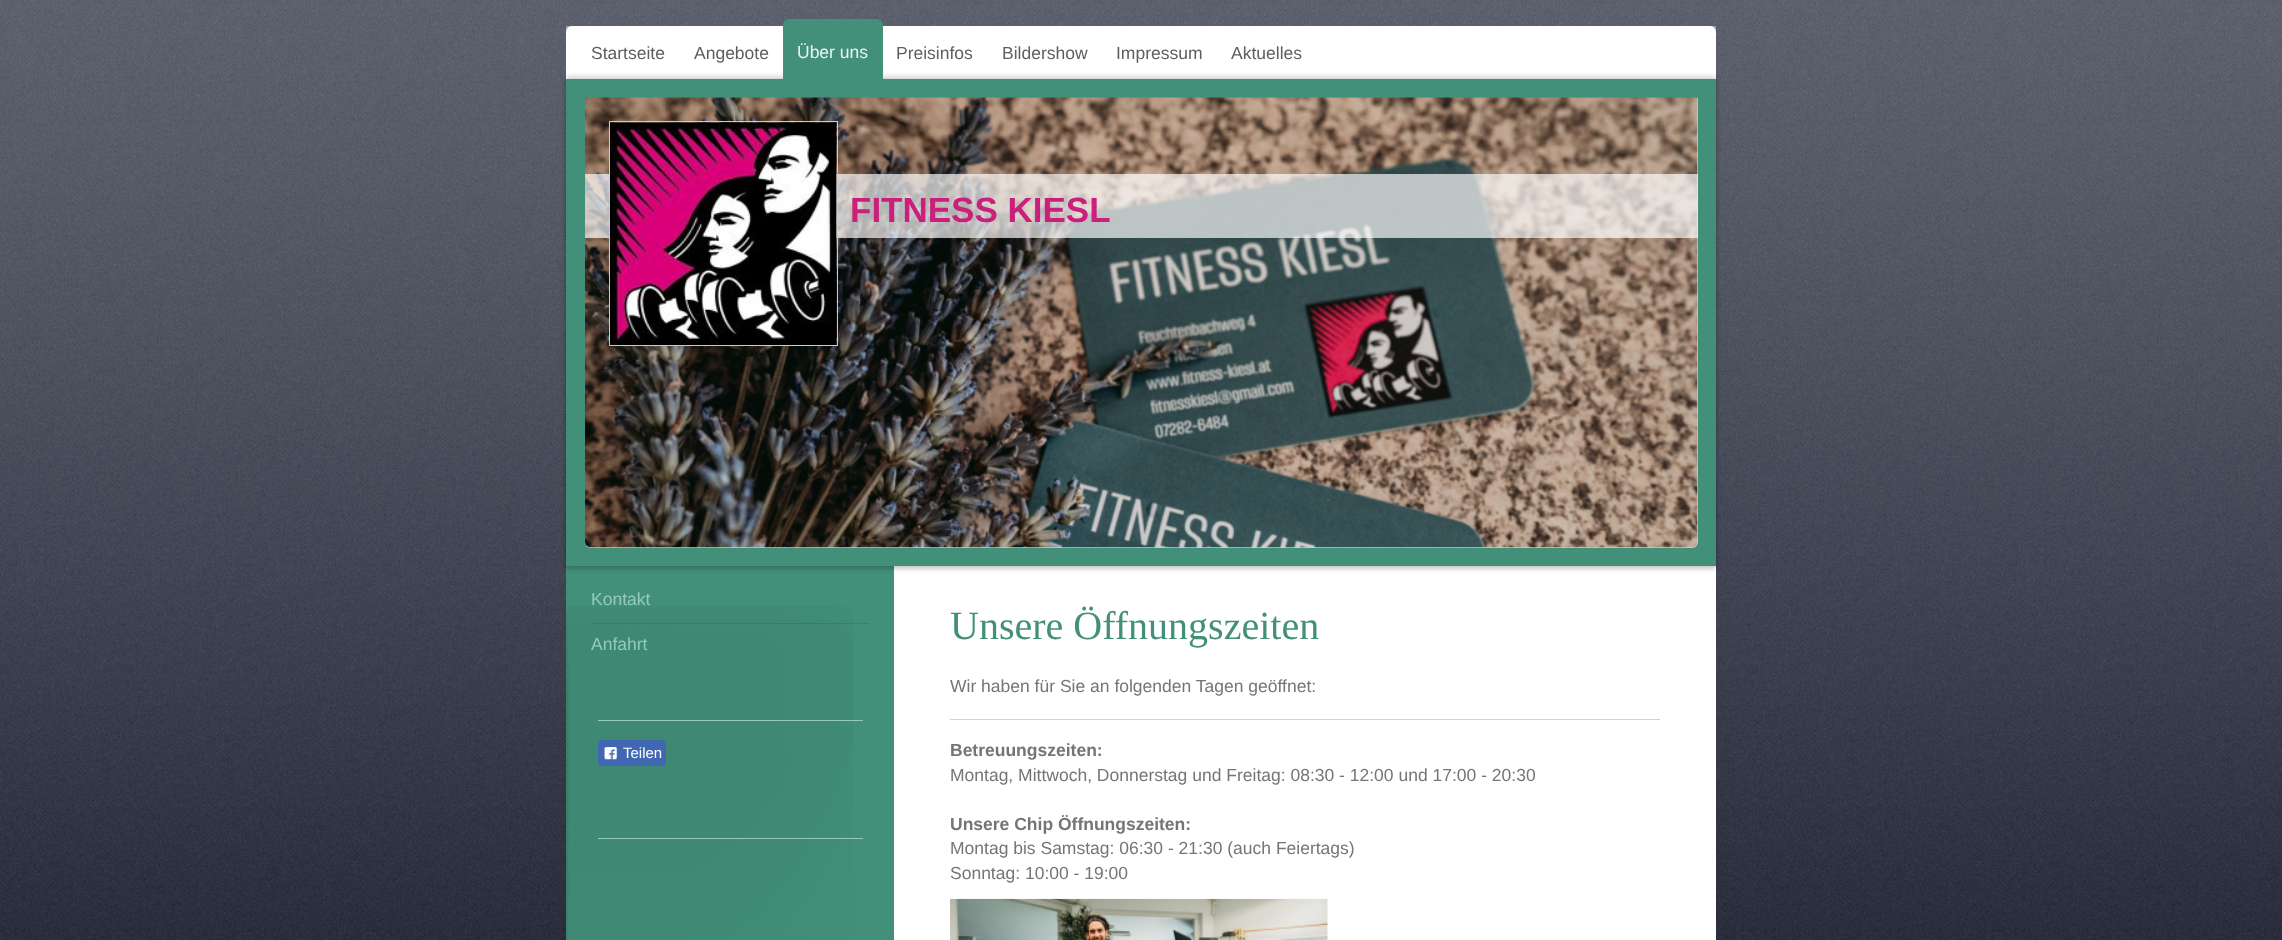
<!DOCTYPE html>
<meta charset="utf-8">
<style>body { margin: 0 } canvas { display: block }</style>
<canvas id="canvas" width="2282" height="940"></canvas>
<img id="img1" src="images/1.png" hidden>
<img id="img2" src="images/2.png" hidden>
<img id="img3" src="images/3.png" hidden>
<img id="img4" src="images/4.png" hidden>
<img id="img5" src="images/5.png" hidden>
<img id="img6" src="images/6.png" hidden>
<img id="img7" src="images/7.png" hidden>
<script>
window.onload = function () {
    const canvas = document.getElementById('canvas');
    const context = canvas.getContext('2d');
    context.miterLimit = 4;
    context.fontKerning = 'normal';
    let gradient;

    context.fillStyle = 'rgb(255, 255, 255)';
    context.fillRect(0, 0, 2282, 940);
    context.drawImage(document.getElementById('img1'), 0, 0, 2282, 940);
    context.beginPath();
    context.roundRect(566, 26, 1150, 54, [6, 6, 0, 0]);
    context.fill();
    context.fillStyle = 'rgba(255, 255, 255, 0.3)';
    context.beginPath();
    context.moveTo(572, 28);
    context.lineTo(1710, 28);
    context.bezierCurveTo(1713, 28, 1716, 30, 1716, 34);
    context.lineTo(1716, 32);
    context.bezierCurveTo(1716, 29, 1713, 26, 1710, 26);
    context.lineTo(572, 26);
    context.bezierCurveTo(569, 26, 566, 29, 566, 32);
    context.lineTo(566, 34);
    context.bezierCurveTo(566, 30, 569, 28, 572, 28);
    context.closePath();
    context.fill();
    gradient = context.createLinearGradient(553, 26, 553, 80);
    gradient.addColorStop(0, 'rgba(255, 255, 255, 0.4)');
    gradient.addColorStop(1, 'rgba(255, 255, 255, 0)');
    context.fillStyle = gradient;
    context.fillRect(566, 26, 1150, 5);
    context.fillStyle = 'rgb(255, 255, 255)';
    context.fillRect(894, 566, 822, 374);
    context.fillStyle = 'rgb(67, 144, 122)';
    context.fillRect(566, 566, 328, 374);
    context.fillStyle = 'rgba(0, 0, 0, 0.15)';
    context.filter = 'blur(2.5px)';
    context.beginPath();
    context.rect(566, 76, 1150, 488);
    context.fill();
    context.filter = 'none';
    context.fillStyle = 'rgba(0, 0, 0, 0.2)';
    context.filter = 'blur(2px)';
    context.beginPath();
    context.rect(566, 81, 1150, 488);
    context.fill();
    context.filter = 'none';
    context.fillStyle = 'rgb(67, 144, 122)';
    context.fillRect(566, 79, 1150, 487);
    context.beginPath();
    context.roundRect(783, 19, 100, 61, [6, 6, 0, 0]);
    context.fill();
    context.drawImage(document.getElementById('img2'), 585, 97, 1113, 451);
    context.fillStyle = 'rgb(204, 204, 204)';
    context.beginPath();
    context.roundRect(585, 98, 1113, 450, [0, 0, 6, 6]);
    context.fill();
    context.drawImage(document.getElementById('img3'), 585, 97, 1113, 451);
    context.fillStyle = 'rgba(255, 255, 255, 0.68)';
    context.fillRect(585, 174, 1113, 64);
    context.strokeStyle = 'rgb(204, 204, 204)';
    context.strokeRect(609.5, 121.5, 228, 224);
    context.drawImage(document.getElementById('img4'), 610, 122, 227, 223);
    context.drawImage(document.getElementById('img5'), 566, 606, 287, 334);
    context.fillStyle = 'rgba(0, 0, 0, 0.1)';
    context.fillRect(591, 623, 278, 1);
    context.fillStyle = 'rgb(147, 202, 186)';
    context.fillRect(598, 720, 265, 1);
    context.fillStyle = 'rgb(66, 103, 178)';
    context.beginPath();
    context.roundRect(598, 740, 68, 26, 4);
    context.fill();
    context.drawImage(document.getElementById('img6'), 604, 747, 13, 13);
    context.fillStyle = 'rgb(147, 202, 186)';
    context.fillRect(598, 838, 265, 1);
    context.fillStyle = 'rgb(209, 209, 209)';
    context.fillRect(950, 719, 710, 1);
    context.drawImage(document.getElementById('img7'), 950, 898, 378, 42);
    context.font = '17.5px Liberation Sans';
    context.fillStyle = 'rgb(94, 94, 94)';
    context.fillText('Startseite', 591, 59);
    context.fillText('Angebote', 694, 59);
    context.fillStyle = 'rgb(236, 244, 242)';
    context.fillText('Über uns', 797, 58);
    context.fillStyle = 'rgb(94, 94, 94)';
    context.fillText('Preisinfos', 896, 59);
    context.fillText('Bildershow', 1002, 59);
    context.fillText('Impressum', 1116, 59);
    context.fillText('Aktuelles', 1231, 59);
    context.font = 'bold 35px Liberation Sans';
    context.fillStyle = 'rgb(202, 31, 123)';
    context.fillText('FITNESS KIESL', 850, 222);
    context.font = '17.5px Liberation Sans';
    context.fillStyle = 'rgb(147, 202, 186)';
    context.fillText('Kontakt', 591, 605);
    context.fillText('Anfahrt', 591, 650);
    context.font = '15px Liberation Sans';
    context.fillStyle = 'rgb(255, 255, 255)';
    context.fillText('Teilen', 623, 758);
    context.font = '40px Liberation Serif';
    context.fillStyle = 'rgb(67, 144, 122)';
    context.fillText('Unsere Öffnungszeiten', 950, 639);
    context.font = '17.5px Liberation Sans';
    context.fillStyle = 'rgb(117, 117, 117)';
    context.fillText('Wir haben für Sie an folgenden Tagen geöffnet:', 950, 692);
    context.font = 'bold 17.5px Liberation Sans';
    context.fillText('Betreuungszeiten:', 950, 756);
    context.font = '17.5px Liberation Sans';
    context.fillText('Montag, Mittwoch, Donnerstag und Freitag: 08:30 - 12:00 und 17:00 - 20:30', 950, 781);
    context.font = 'bold 17.5px Liberation Sans';
    context.fillText('Unsere Chip Öffnungszeiten:', 950, 830);
    context.font = '17.5px Liberation Sans';
    context.fillText('Montag bis Samstag: 06:30 - 21:30 (auch Feiertags)', 950, 854);
    context.fillText('Sonntag: 10:00 - 19:00', 950, 879);
};
</script>
